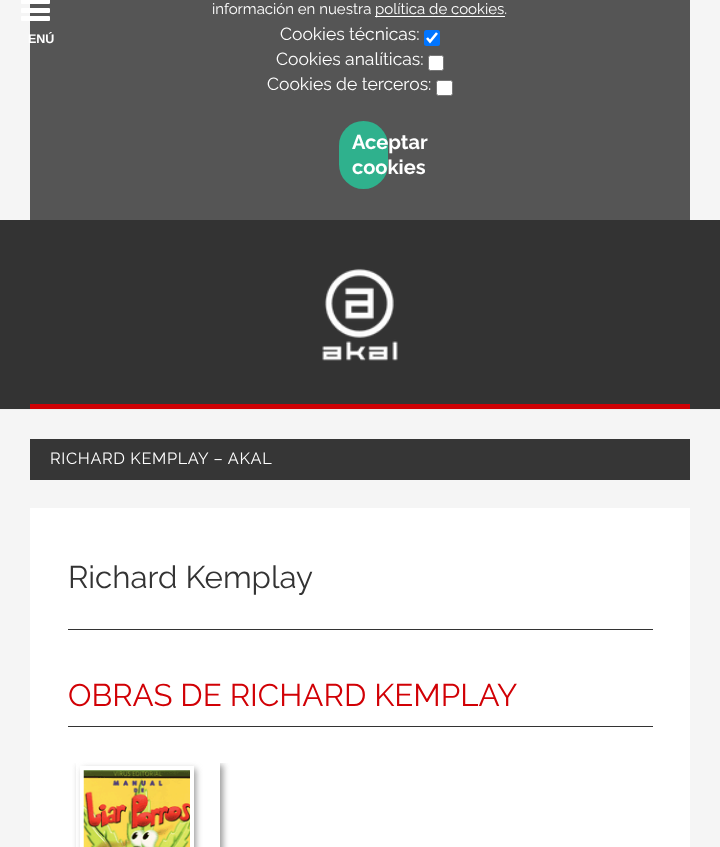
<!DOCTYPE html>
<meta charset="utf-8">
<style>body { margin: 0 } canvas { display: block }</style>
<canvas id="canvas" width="720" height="847"></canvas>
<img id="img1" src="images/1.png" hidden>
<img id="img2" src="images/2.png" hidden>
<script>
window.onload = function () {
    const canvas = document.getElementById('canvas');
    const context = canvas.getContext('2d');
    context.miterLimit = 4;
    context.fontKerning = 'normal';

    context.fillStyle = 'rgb(245, 245, 245)';
    context.fillRect(0, 0, 720, 847);
    context.fillStyle = 'rgb(51, 51, 51)';
    context.fillRect(0, 220, 720, 189);
    context.fillStyle = 'rgb(238, 238, 238)';
    context.fillRect(0, 409, 720, 1);
    context.fillStyle = 'rgb(206, 0, 5)';
    context.fillRect(30, 404, 660, 5);
    context.fillStyle = 'rgb(85, 85, 85)';
    context.fillRect(30, 0, 660, 220);
    context.fillStyle = 'rgb(255, 255, 255)';
    context.beginPath();
    context.roundRect(21, -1, 29, 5, 1);
    context.fill();
    context.beginPath();
    context.roundRect(21, 8, 29, 5, 1);
    context.fill();
    context.beginPath();
    context.roundRect(21, 16, 29, 5, 1);
    context.fill();
    context.drawImage(document.getElementById('img1'), 322, 268, 76, 93);
    context.fillRect(375, 16, 130, 1);
    context.fillStyle = 'rgb(0, 117, 255)';
    context.beginPath();
    context.roundRect(424, 30, 16, 16, 2.5);
    context.fill();
    context.beginPath();
    context.moveTo(427, 38);
    context.lineTo(430, 41.5);
    context.lineTo(437, 33);
    context.strokeStyle = 'rgb(255, 255, 255)';
    context.lineWidth = 2.6;
    context.stroke();
    context.fillStyle = 'rgb(255, 255, 255)';
    context.beginPath();
    context.roundRect(428.5, 55.5, 15, 15, 2);
    context.fill();
    context.strokeStyle = 'rgb(118, 118, 118)';
    context.lineWidth = 1;
    context.stroke();
    context.beginPath();
    context.roundRect(436.5, 80.5, 16, 15, 2);
    context.fill();
    context.stroke();
    context.fillStyle = 'rgb(47, 177, 141)';
    context.beginPath();
    context.roundRect(339, 121, 49, 68, 24.5);
    context.fill();
    context.fillStyle = 'rgb(54, 54, 54)';
    context.fillRect(30, 439, 660, 41);
    context.fillStyle = 'rgb(255, 255, 255)';
    context.fillRect(30, 508, 660, 339);
    context.fillStyle = 'rgb(51, 51, 51)';
    context.fillRect(68, 629, 585, 1);
    context.fillRect(68, 726, 585, 1);
    context.save();
    context.beginPath();
    context.rect(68, 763, 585, 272);
    context.clip();
    context.fillStyle = 'rgb(153, 153, 153)';
    context.filter = 'blur(3px)';
    context.beginPath();
    context.rect(79, 765, 144, 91);
    context.fill();
    context.filter = 'none';
    context.restore();
    context.fillStyle = 'rgb(255, 255, 255)';
    context.fillRect(76, 763, 144, 84);
    context.fillStyle = 'rgb(153, 153, 153)';
    context.filter = 'blur(3px)';
    context.beginPath();
    context.rect(83, 769, 113, 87);
    context.fill();
    context.filter = 'none';
    context.fillStyle = 'rgb(255, 255, 255)';
    context.fillRect(80, 766, 114, 81);
    context.drawImage(document.getElementById('img2'), 83, 770, 107, 77);
    context.font = 'bold 12.5px Liberation Sans';
    context.fillText('ENÚ', 28, 43);
    context.font = '15px Raleway';
    context.fillText('información en nuestra', 212, 14);
    context.fillText('política de cookies.', 375, 14);
    context.font = '17.5px Raleway';
    context.fillText('Cookies técnicas:', 280, 40);
    context.fillText('Cookies analíticas:', 276, 65);
    context.fillText('Cookies de terceros:', 267, 90);
    context.font = 'bold 20px Raleway';
    context.fillText('Aceptar', 352, 149);
    context.fillText('cookies', 352, 174);
    context.letterSpacing = '0.65px';
    context.font = '16.25px Raleway';
    context.fillText('RICHARD KEMPLAY – AKAL', 50, 464);
    context.letterSpacing = '0px';
    context.font = '31.25px Raleway';
    context.fillStyle = 'rgb(51, 51, 51)';
    context.fillText('Richard Kemplay', 68, 588);
    context.fillStyle = 'rgb(209, 0, 5)';
    context.fillText('OBRAS DE RICHARD KEMPLAY', 68, 706);
};
</script>
